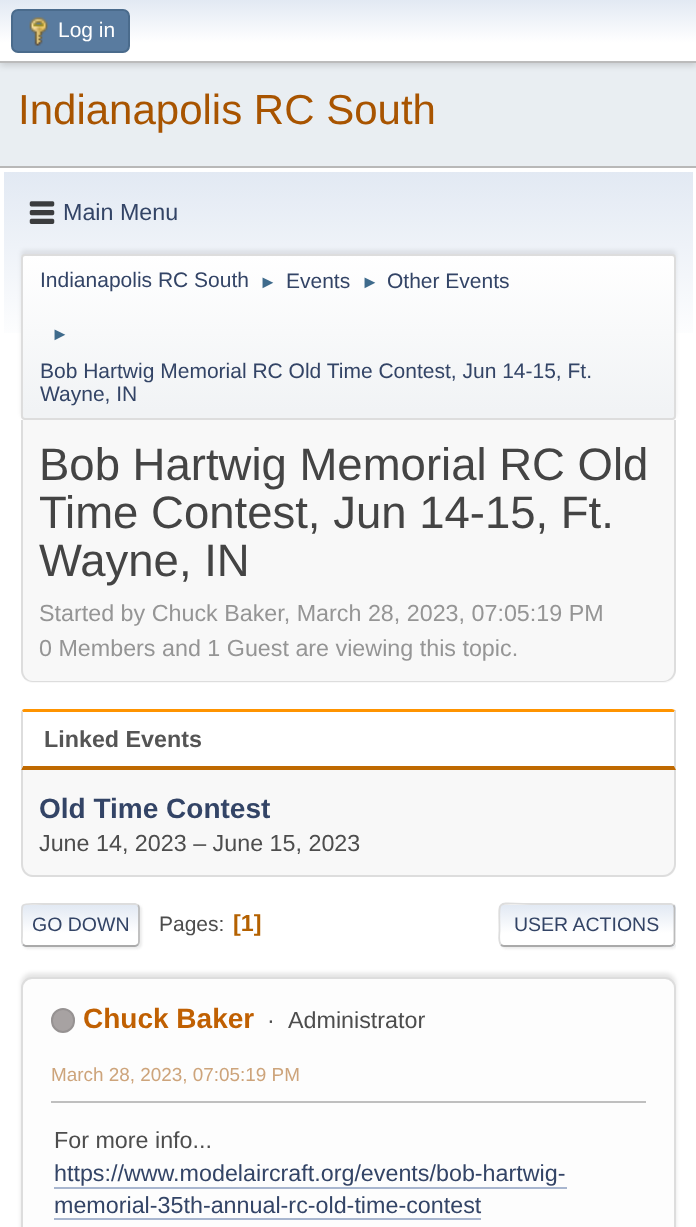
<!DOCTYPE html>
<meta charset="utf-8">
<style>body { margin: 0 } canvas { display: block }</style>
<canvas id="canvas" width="696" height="1227"></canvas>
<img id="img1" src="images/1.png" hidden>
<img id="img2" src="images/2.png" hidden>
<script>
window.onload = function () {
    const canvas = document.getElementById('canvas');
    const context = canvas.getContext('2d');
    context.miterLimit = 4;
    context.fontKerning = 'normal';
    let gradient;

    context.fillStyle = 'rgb(233, 238, 242)';
    context.fillRect(0, 0, 696, 1227);
    context.fillStyle = 'rgba(0, 0, 0, 0.16)';
    context.filter = 'blur(3.5px)';
    context.beginPath();
    context.rect(0, 2, 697, 63);
    context.fill();
    context.filter = 'none';
    gradient = context.createLinearGradient(348, 0, 348, 61);
    gradient.addColorStop(0, 'rgb(226, 233, 243)');
    gradient.addColorStop(0.7, 'rgb(255, 255, 255)');
    context.fillStyle = gradient;
    context.fillRect(0, 0, 696, 61);
    context.fillStyle = 'rgb(187, 187, 187)';
    context.fillRect(0, 61, 696, 2);
    context.fillStyle = 'rgb(89, 123, 159)';
    context.beginPath();
    context.roundRect(12, 10, 117, 42, 6);
    context.fill();
    context.strokeStyle = 'rgb(74, 107, 140)';
    context.lineWidth = 2;
    context.stroke();
    context.drawImage(document.getElementById('img1'), 29, 17, 19, 29);
    context.fillStyle = 'rgb(255, 255, 255)';
    context.fillRect(0, 168, 696, 1059);
    context.fillStyle = 'rgb(184, 184, 184)';
    context.fillRect(0, 166, 696, 2);
    gradient = context.createLinearGradient(348, 171, 348, 424);
    gradient.addColorStop(0, 'rgb(226, 233, 243)');
    gradient.addColorStop(0.7, 'rgb(255, 255, 255)');
    context.fillStyle = gradient;
    context.fillRect(4, 172, 689, 161);
    context.drawImage(document.getElementById('img2'), 29, 201, 26, 23);
    context.fillStyle = 'rgba(0, 0, 0, 0.08)';
    context.filter = 'blur(2px)';
    context.beginPath();
    context.roundRect(21, 250, 655, 167, 4);
    context.fill();
    context.filter = 'none';
    context.save();
    context.beginPath();
    context.roundRect(21, 254, 655, 166, 4);
    context.clip();
    gradient = context.createLinearGradient(348, 255, 348, 418);
    gradient.addColorStop(0, 'rgb(255, 255, 255)');
    gradient.addColorStop(0.95, 'rgb(241, 243, 245)');
    context.fillStyle = gradient;
    context.fillRect(21, 256, 655, 162);
    context.restore();
    context.beginPath();
    context.roundRect(22, 255, 653, 164, 3);
    context.strokeStyle = 'rgb(221, 221, 221)';
    context.stroke();
    context.fillStyle = 'rgb(248, 248, 248)';
    context.beginPath();
    context.roundRect(21, 420, 655, 263, [0, 0, 12, 12]);
    context.fill();
    context.fillStyle = 'rgb(221, 221, 221)';
    context.beginPath();
    context.moveTo(21, 420);
    context.lineTo(676, 420);
    context.lineTo(676, 670);
    context.bezierCurveTo(676, 677, 670, 682, 663, 682);
    context.lineTo(33, 682);
    context.bezierCurveTo(26, 682, 21, 677, 21, 670);
    context.closePath();
    context.moveTo(23, 420);
    context.lineTo(674, 420);
    context.lineTo(674, 670);
    context.bezierCurveTo(674, 676, 669, 681, 663, 681);
    context.lineTo(33, 681);
    context.bezierCurveTo(27, 681, 23, 676, 23, 670);
    context.closePath();
    context.fill('evenodd');
    context.fillStyle = 'rgb(255, 148, 0)';
    context.beginPath();
    context.moveTo(24, 709);
    context.lineTo(22, 710);
    context.lineTo(23, 713);
    context.lineTo(23, 712);
    context.lineTo(674, 712);
    context.lineTo(675, 710);
    context.lineTo(672, 709);
    context.closePath();
    context.fill();
    context.fillStyle = 'rgb(221, 221, 221)';
    context.beginPath();
    context.moveTo(676, 710);
    context.lineTo(676, 770);
    context.lineTo(674, 766);
    context.lineTo(674, 712);
    context.lineTo(675, 710);
    context.closePath();
    context.fill();
    context.fillStyle = 'rgb(191, 105, 0)';
    context.beginPath();
    context.moveTo(676, 770);
    context.lineTo(674, 766);
    context.lineTo(23, 766);
    context.lineTo(21, 770);
    context.closePath();
    context.fill();
    context.fillStyle = 'rgb(221, 221, 221)';
    context.beginPath();
    context.moveTo(21, 770);
    context.lineTo(23, 766);
    context.lineTo(23, 713);
    context.lineTo(22, 710);
    context.lineTo(21, 712);
    context.closePath();
    context.fill();
    context.fillStyle = 'rgb(248, 248, 248)';
    context.beginPath();
    context.roundRect(21, 770, 655, 107, [0, 0, 12, 12]);
    context.fill();
    context.fillStyle = 'rgb(221, 221, 221)';
    context.beginPath();
    context.moveTo(21, 770);
    context.lineTo(676, 770);
    context.lineTo(676, 864);
    context.bezierCurveTo(676, 871, 670, 877, 663, 877);
    context.lineTo(33, 877);
    context.bezierCurveTo(26, 877, 21, 871, 21, 864);
    context.closePath();
    context.moveTo(23, 770);
    context.lineTo(674, 770);
    context.lineTo(674, 864);
    context.bezierCurveTo(674, 870, 669, 875, 663, 875);
    context.lineTo(33, 875);
    context.bezierCurveTo(27, 875, 23, 870, 23, 864);
    context.closePath();
    context.fill('evenodd');
    context.fillStyle = 'rgba(221, 221, 221, 0.57)';
    context.filter = 'blur(1px)';
    context.beginPath();
    context.roundRect(23, 905, 119, 44, 5);
    context.fill();
    context.filter = 'none';
    context.fillStyle = 'rgb(255, 255, 255)';
    context.beginPath();
    context.roundRect(21, 903, 119, 44, 5);
    context.fill();
    context.save();
    context.beginPath();
    context.roundRect(21, 903, 119, 44, 5);
    context.clip();
    gradient = context.createLinearGradient(81, 905, 81, 945);
    gradient.addColorStop(0, 'rgb(226, 233, 243)');
    gradient.addColorStop(0.7, 'rgb(255, 255, 255)');
    context.fillStyle = gradient;
    context.fillRect(21, 905, 119, 40);
    gradient = context.createLinearGradient(81, 945, 81, 985);
    gradient.addColorStop(0, 'rgb(226, 233, 243)');
    gradient.addColorStop(0.7, 'rgb(255, 255, 255)');
    context.fillStyle = gradient;
    context.fillRect(21, 945, 119, 2);
    context.restore();
    context.beginPath();
    context.moveTo(138, 905);
    context.bezierCurveTo(138.5, 906, 139, 907, 139, 908);
    context.lineTo(139, 941.5);
    context.bezierCurveTo(139, 942.5, 138.5, 944, 138, 944.5);
    context.strokeStyle = 'rgb(187, 187, 187)';
    context.lineWidth = 1.8;
    context.stroke();
    context.beginPath();
    context.moveTo(138, 944.5);
    context.bezierCurveTo(137, 945.5, 136, 946, 135, 946);
    context.lineTo(26, 946);
    context.bezierCurveTo(25, 946, 24, 945.5, 23, 944.5);
    context.strokeStyle = 'rgb(170, 170, 170)';
    context.stroke();
    context.save();
    context.beginPath();
    context.rect(21, 894, 655, 62);
    context.clip();
    context.beginPath();
    context.moveTo(23, 944.5);
    context.bezierCurveTo(21, 942.5, 22, 938.5, 22, 936);
    context.lineTo(22, 925);
    context.bezierCurveTo(22, 900, 18, 904, 44.5, 904);
    context.lineTo(135, 904);
    context.lineTo(138, 905);
    context.strokeStyle = 'rgb(221, 221, 221)';
    context.stroke();
    context.restore();
    context.save();
    context.beginPath();
    context.rect(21, 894, 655, 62);
    context.clip();
    context.fillStyle = 'rgba(221, 221, 221, 0.57)';
    context.filter = 'blur(1px)';
    context.beginPath();
    context.roundRect(501, 905, 176, 44, 5);
    context.fill();
    context.filter = 'none';
    context.restore();
    context.beginPath();
    context.roundRect(499, 903, 177, 44, 5);
    context.fill();
    context.save();
    context.beginPath();
    context.roundRect(499, 903, 177, 44, 5);
    context.clip();
    gradient = context.createLinearGradient(587, 905, 587, 945);
    gradient.addColorStop(0, 'rgb(226, 233, 243)');
    gradient.addColorStop(0.7, 'rgb(255, 255, 255)');
    context.fillStyle = gradient;
    context.fillRect(499, 905, 177, 40);
    gradient = context.createLinearGradient(587, 945, 587, 985);
    gradient.addColorStop(0, 'rgb(226, 233, 243)');
    gradient.addColorStop(0.7, 'rgb(255, 255, 255)');
    context.fillStyle = gradient;
    context.fillRect(499, 945, 177, 2);
    context.restore();
    context.beginPath();
    context.moveTo(673.5, 905);
    context.bezierCurveTo(674, 906, 674.5, 907, 674.5, 908);
    context.lineTo(674.5, 941.5);
    context.bezierCurveTo(674.5, 942.5, 674, 944, 673.5, 944.5);
    context.strokeStyle = 'rgb(187, 187, 187)';
    context.stroke();
    context.beginPath();
    context.moveTo(673.5, 944.5);
    context.bezierCurveTo(672.5, 945.5, 671.5, 946, 670, 946);
    context.lineTo(504, 946);
    context.bezierCurveTo(503, 946, 501.5, 945.5, 501, 944.5);
    context.strokeStyle = 'rgb(170, 170, 170)';
    context.stroke();
    context.beginPath();
    context.moveTo(501, 944.5);
    context.bezierCurveTo(498, 942, 499.5, 933.5, 499.5, 930.5);
    context.bezierCurveTo(499.5, 897, 494, 904, 531.5, 904);
    context.lineTo(671, 904);
    context.lineTo(673.5, 905);
    context.strokeStyle = 'rgb(221, 221, 221)';
    context.stroke();
    context.fillStyle = 'rgba(0, 0, 0, 0.1)';
    context.filter = 'blur(2px)';
    context.beginPath();
    context.roundRect(21, 973, 655, 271, 11);
    context.fill();
    context.filter = 'none';
    context.fillStyle = 'rgb(253, 253, 253)';
    context.beginPath();
    context.roundRect(22, 978, 653, 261, 10);
    context.fill();
    context.lineWidth = 2;
    context.stroke();
    context.fillStyle = 'rgb(167, 162, 162)';
    context.beginPath();
    context.roundRect(52, 1009, 22, 23, 11);
    context.fill();
    context.strokeStyle = 'rgb(150, 146, 146)';
    context.stroke();
    context.fillStyle = 'rgb(191, 191, 191)';
    context.fillRect(51, 1101, 595, 2);
    context.fillStyle = 'rgb(168, 182, 207)';
    context.fillRect(54, 1187, 513, 2);
    context.fillRect(54, 1218, 427, 2);
    context.font = '21px Liberation Sans';
    context.fillStyle = 'rgb(255, 255, 255)';
    context.fillText('Log in', 58, 37);
    context.font = '42px Liberation Sans';
    context.fillStyle = 'rgb(168, 84, 0)';
    context.fillText('Indianapolis RC South', 18, 124);
    context.font = '23.3px Liberation Sans';
    context.fillStyle = 'rgb(51, 68, 102)';
    context.fillText('Main Menu', 63, 220);
    context.font = '21px Liberation Sans';
    context.fillText('Indianapolis RC South', 40, 287);
    context.font = '18px Liberation Sans';
    context.fillStyle = 'rgb(63, 107, 140)';
    context.fillText('►', 259, 288);
    context.font = '21px Liberation Sans';
    context.fillStyle = 'rgb(51, 68, 102)';
    context.fillText('Events', 286, 288);
    context.font = '18px Liberation Sans';
    context.fillStyle = 'rgb(63, 107, 140)';
    context.fillText('►', 361, 288);
    context.font = '21px Liberation Sans';
    context.fillStyle = 'rgb(51, 68, 102)';
    context.fillText('Other Events', 387, 288);
    context.font = '18px Liberation Sans';
    context.fillStyle = 'rgb(63, 107, 140)';
    context.fillText('►', 51, 340);
    context.font = '21px Liberation Sans';
    context.fillStyle = 'rgb(51, 68, 102)';
    context.fillText('Bob Hartwig Memorial RC Old Time Contest, Jun 14-15, Ft.', 40, 378);
    context.fillText('Wayne, IN', 40, 401);
    context.font = '45.5px Liberation Sans';
    context.fillStyle = 'rgb(68, 68, 68)';
    context.fillText('Bob Hartwig Memorial RC Old', 39, 480);
    context.fillText('Time Contest, Jun 14-15, Ft.', 39, 528);
    context.fillText('Wayne, IN', 39, 576);
    context.font = '23.3px Liberation Sans';
    context.fillStyle = 'rgb(149, 149, 149)';
    context.fillText('Started by Chuck Baker, March 28, 2023, 07:05:19 PM', 39, 621);
    context.fillText('0 Members and 1 Guest are viewing this topic.', 39, 656);
    context.font = 'bold 23.3px Liberation Sans';
    context.fillStyle = 'rgb(85, 85, 85)';
    context.fillText('Linked Events', 44, 747);
    context.font = 'bold 28px Liberation Sans';
    context.fillStyle = 'rgb(51, 68, 102)';
    context.fillText('Old Time Contest', 39, 818);
    context.font = '23.3px Liberation Sans';
    context.fillStyle = 'rgb(77, 77, 77)';
    context.fillText('June 14, 2023 – June 15, 2023', 39, 851);
    context.font = '19.5px Liberation Sans';
    context.fillStyle = 'rgb(51, 68, 102)';
    context.fillText('GO DOWN', 32, 931);
    context.font = '21px Liberation Sans';
    context.fillStyle = 'rgb(77, 77, 77)';
    context.fillText('Pages:', 159, 931);
    context.font = 'bold 23.3px Liberation Sans';
    context.fillStyle = 'rgb(180, 97, 0)';
    context.fillText('[1]', 233, 931);
    context.font = '19.5px Liberation Sans';
    context.fillStyle = 'rgb(51, 68, 102)';
    context.fillText('USER ACTIONS', 514, 931);
    context.font = 'bold 28px Liberation Sans';
    context.fillStyle = 'rgb(192, 96, 2)';
    context.fillText('Chuck Baker', 83, 1028);
    context.font = '23.3px Liberation Sans';
    context.fillStyle = 'rgb(77, 77, 77)';
    context.fillText('·', 267, 1028);
    context.fillText('Administrator', 288, 1028);
    context.font = '18.9px Liberation Sans';
    context.fillStyle = 'rgb(205, 164, 123)';
    context.fillText('March 28, 2023, 07:05:19 PM', 51, 1081);
    context.font = '23.3px Liberation Sans';
    context.fillStyle = 'rgb(77, 77, 77)';
    context.fillText('For more info...', 54, 1148);
    context.fillStyle = 'rgb(51, 68, 102)';
    context.fillText('https://www.modelaircraft.org/events/bob-hartwig-', 54, 1181);
    context.fillText('memorial-35th-annual-rc-old-time-contest', 54, 1213);
};
</script>
